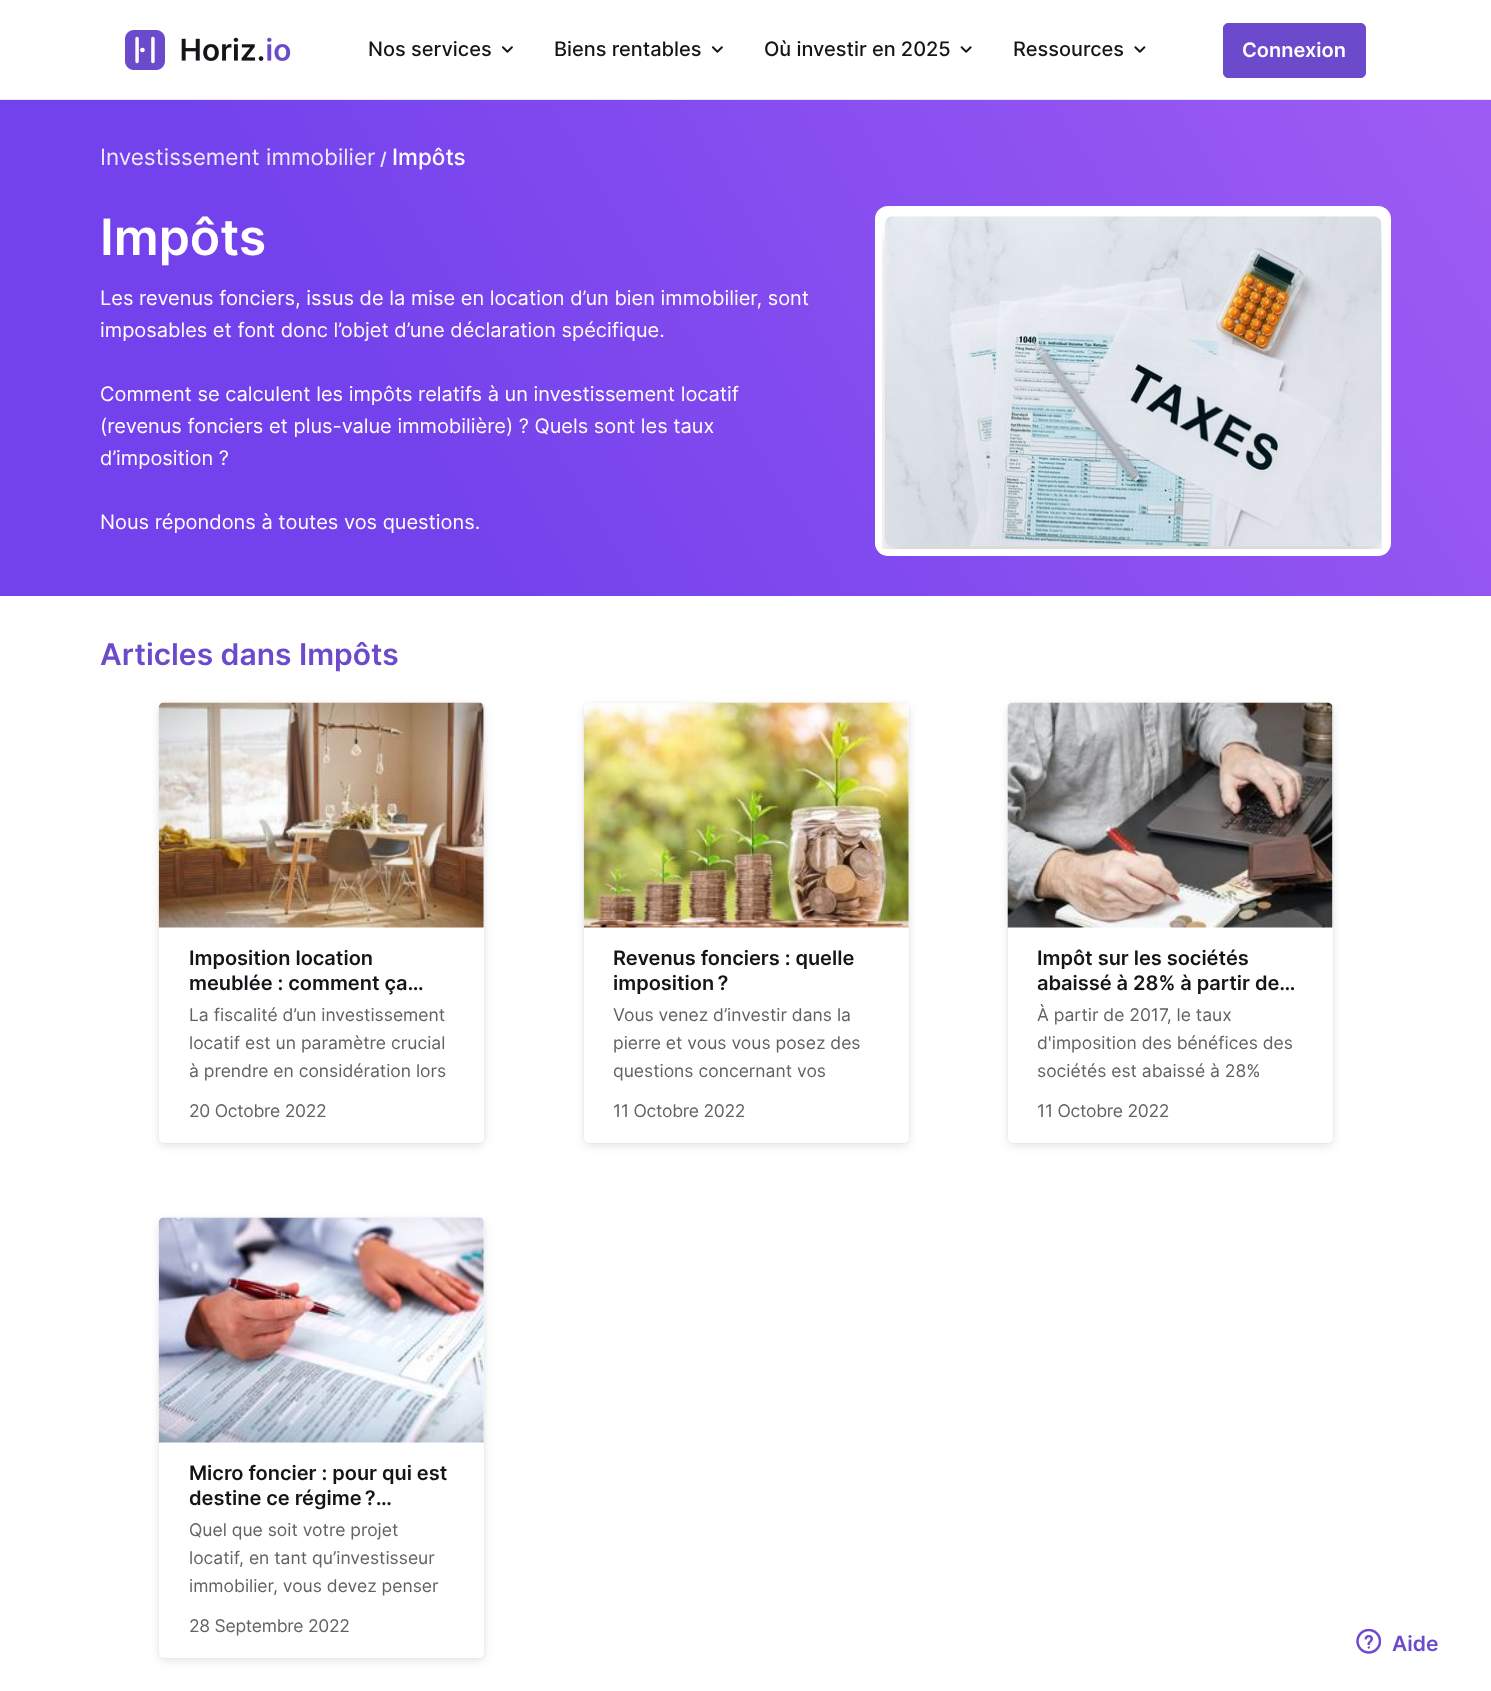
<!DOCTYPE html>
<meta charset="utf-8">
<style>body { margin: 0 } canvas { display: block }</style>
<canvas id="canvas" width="1491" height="1691"></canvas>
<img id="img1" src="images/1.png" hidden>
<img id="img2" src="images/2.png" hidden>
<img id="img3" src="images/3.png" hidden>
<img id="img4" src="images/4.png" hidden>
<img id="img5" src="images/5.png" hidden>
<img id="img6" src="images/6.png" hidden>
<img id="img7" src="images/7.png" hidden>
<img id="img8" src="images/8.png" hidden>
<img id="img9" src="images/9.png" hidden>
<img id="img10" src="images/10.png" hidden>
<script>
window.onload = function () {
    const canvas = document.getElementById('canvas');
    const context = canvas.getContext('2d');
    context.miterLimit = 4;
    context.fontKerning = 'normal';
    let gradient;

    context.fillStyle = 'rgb(255, 255, 255)';
    context.fillRect(0, 0, 1491, 1691);
    context.fillStyle = 'rgb(232, 234, 237)';
    context.fillRect(0, 99, 1491, 1);
    context.drawImage(document.getElementById('img1'), 125, 30, 166, 40);
    context.drawImage(document.getElementById('img2'), 501, 46, 12, 7);
    context.drawImage(document.getElementById('img2'), 711, 46, 12, 7);
    context.drawImage(document.getElementById('img3'), 960, 46, 12, 7);
    context.drawImage(document.getElementById('img4'), 1134, 46, 12, 7);
    context.fillStyle = 'rgb(107, 75, 204)';
    context.beginPath();
    context.roundRect(1223.5, 23.5, 142, 54, 4.5);
    context.fill();
    context.strokeStyle = 'rgb(107, 75, 204)';
    context.stroke();
    gradient = context.createLinearGradient(89, 744, 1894, -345);
    gradient.addColorStop(0.2, 'rgb(116, 66, 236)');
    gradient.addColorStop(1, 'rgb(180, 105, 247)');
    context.fillStyle = gradient;
    context.fillRect(0, 100, 1491, 496);
    context.fillStyle = 'rgb(255, 255, 255)';
    context.beginPath();
    context.roundRect(875, 206, 516, 350, 13);
    context.fill();
    context.drawImage(document.getElementById('img5'), 882, 216, 500, 333);
    context.fillStyle = 'rgba(0, 0, 0, 0.1)';
    context.filter = 'blur(5px)';
    context.beginPath();
    context.roundRect(159, 706, 325, 440, 5);
    context.fill();
    context.filter = 'none';
    context.fillStyle = 'rgba(0, 0, 0, 0.06)';
    context.filter = 'blur(1px)';
    context.beginPath();
    context.roundRect(159, 703, 325, 440, 5);
    context.fill();
    context.filter = 'none';
    context.fillStyle = 'rgb(255, 255, 255)';
    context.beginPath();
    context.roundRect(159, 703, 325, 440, 5);
    context.fill();
    context.drawImage(document.getElementById('img6'), 158, 702, 326, 226);
    context.fillStyle = 'rgba(0, 0, 0, 0.1)';
    context.filter = 'blur(5px)';
    context.beginPath();
    context.roundRect(584, 706, 325, 440, 5);
    context.fill();
    context.filter = 'none';
    context.fillStyle = 'rgba(0, 0, 0, 0.06)';
    context.filter = 'blur(1px)';
    context.beginPath();
    context.roundRect(584, 703, 325, 440, 5);
    context.fill();
    context.filter = 'none';
    context.fillStyle = 'rgb(255, 255, 255)';
    context.beginPath();
    context.roundRect(584, 703, 325, 440, 5);
    context.fill();
    context.drawImage(document.getElementById('img7'), 583, 702, 326, 226);
    context.fillStyle = 'rgba(0, 0, 0, 0.1)';
    context.filter = 'blur(5px)';
    context.beginPath();
    context.roundRect(1008, 706, 325, 440, 5);
    context.fill();
    context.filter = 'none';
    context.fillStyle = 'rgba(0, 0, 0, 0.06)';
    context.filter = 'blur(1px)';
    context.beginPath();
    context.roundRect(1008, 703, 325, 440, 5);
    context.fill();
    context.filter = 'none';
    context.fillStyle = 'rgb(255, 255, 255)';
    context.beginPath();
    context.roundRect(1008, 703, 325, 440, 5);
    context.fill();
    context.drawImage(document.getElementById('img8'), 1007, 702, 326, 226);
    context.fillStyle = 'rgba(0, 0, 0, 0.1)';
    context.filter = 'blur(5px)';
    context.beginPath();
    context.roundRect(159, 1221, 325, 440, 5);
    context.fill();
    context.filter = 'none';
    context.fillStyle = 'rgba(0, 0, 0, 0.06)';
    context.filter = 'blur(1px)';
    context.beginPath();
    context.roundRect(159, 1218, 325, 440, 5);
    context.fill();
    context.filter = 'none';
    context.fillStyle = 'rgb(255, 255, 255)';
    context.beginPath();
    context.roundRect(159, 1218, 325, 440, 5);
    context.fill();
    context.drawImage(document.getElementById('img9'), 158, 1217, 326, 226);
    context.drawImage(document.getElementById('img10'), 1356, 1629, 25, 25);
    context.font = '500 20px Inter';
    context.fillStyle = 'rgb(20, 21, 24)';
    context.fillText('Nos services', 368, 56);
    context.fillText('Biens rentables', 554, 56);
    context.fillText('Où investir en 2025', 764, 56);
    context.fillText('Ressources', 1013, 56);
    context.font = '600 20px Inter';
    context.fillStyle = 'rgb(255, 255, 255)';
    context.fillText('Connexion', 1242, 57);
    context.font = '22.5px Inter';
    context.fillStyle = 'rgb(234, 234, 251)';
    context.fillText('Investissement immobilier', 100, 165);
    context.font = '600 17.5px Inter';
    context.fillText('/', 380, 165);
    context.font = '500 22.5px Inter';
    context.fillStyle = 'rgb(255, 255, 255)';
    context.fillText('Impôts', 392, 165);
    context.font = '600 50px Inter';
    context.fillText('Impôts', 100, 255);
    context.font = '20px Inter';
    context.fillText('Les revenus fonciers, issus de la mise en location d’un bien immobilier, sont', 100, 305);
    context.fillText('imposables et font donc l’objet d’une déclaration spécifique.', 100, 337);
    context.fillText('Comment se calculent les impôts relatifs à un investissement locatif', 100, 401);
    context.fillText('(revenus fonciers et plus-value immobilière) ? Quels sont les taux', 100, 433);
    context.fillText('d’imposition ?', 100, 465);
    context.fillText('Nous répondons à toutes vos questions.', 100, 529);
    context.font = '600 30px Inter';
    context.fillStyle = 'rgb(107, 75, 204)';
    context.fillText('Articles dans Impôts', 100, 665);
    context.font = '600 20px Inter';
    context.fillStyle = 'rgb(20, 21, 24)';
    context.fillText('Imposition location', 189, 965);
    context.fillText('meublée : comment ça…', 189, 990);
    context.font = '17.5px Inter';
    context.fillStyle = 'rgb(96, 98, 102)';
    context.fillText('La fiscalité d’un investissement', 189, 1021);
    context.fillText('locatif est un paramètre crucial', 189, 1049);
    context.fillText('à prendre en considération lors', 189, 1077);
    context.letterSpacing = '-0.25px';
    context.fillText('20 Octobre 2022', 189, 1117);
    context.letterSpacing = '0px';
    context.font = '600 20px Inter';
    context.fillStyle = 'rgb(20, 21, 24)';
    context.fillText('Revenus fonciers : quelle', 613, 965);
    context.fillText('imposition ?', 613, 990);
    context.font = '17.5px Inter';
    context.fillStyle = 'rgb(96, 98, 102)';
    context.fillText('Vous venez d’investir dans la', 613, 1021);
    context.fillText('pierre et vous vous posez des', 613, 1049);
    context.fillText('questions concernant vos', 613, 1077);
    context.letterSpacing = '-0.25px';
    context.fillText('11 Octobre 2022', 613, 1117);
    context.letterSpacing = '0px';
    context.font = '600 20px Inter';
    context.fillStyle = 'rgb(20, 21, 24)';
    context.fillText('Impôt sur les sociétés', 1037, 965);
    context.fillText('abaissé à 28% à partir de…', 1037, 990);
    context.font = '17.5px Inter';
    context.fillStyle = 'rgb(96, 98, 102)';
    context.fillText('À partir de 2017, le taux', 1037, 1021);
    context.fillText('d\'imposition des bénéfices des', 1037, 1049);
    context.fillText('sociétés est abaissé à 28%', 1037, 1077);
    context.letterSpacing = '-0.25px';
    context.fillText('11 Octobre 2022', 1037, 1117);
    context.letterSpacing = '0px';
    context.font = '600 20px Inter';
    context.fillStyle = 'rgb(20, 21, 24)';
    context.fillText('Micro foncier : pour qui est', 189, 1480);
    context.fillText('destine ce régime ?…', 189, 1505);
    context.font = '17.5px Inter';
    context.fillStyle = 'rgb(96, 98, 102)';
    context.fillText('Quel que soit votre projet', 189, 1536);
    context.fillText('locatif, en tant qu’investisseur', 189, 1564);
    context.fillText('immobilier, vous devez penser', 189, 1592);
    context.letterSpacing = '-0.25px';
    context.fillText('28 Septembre 2022', 189, 1632);
    context.letterSpacing = '0px';
    context.font = '600 21px Inter';
    context.fillStyle = 'rgb(107, 75, 204)';
    context.fillText('Aide', 1392, 1651);
};
</script>
